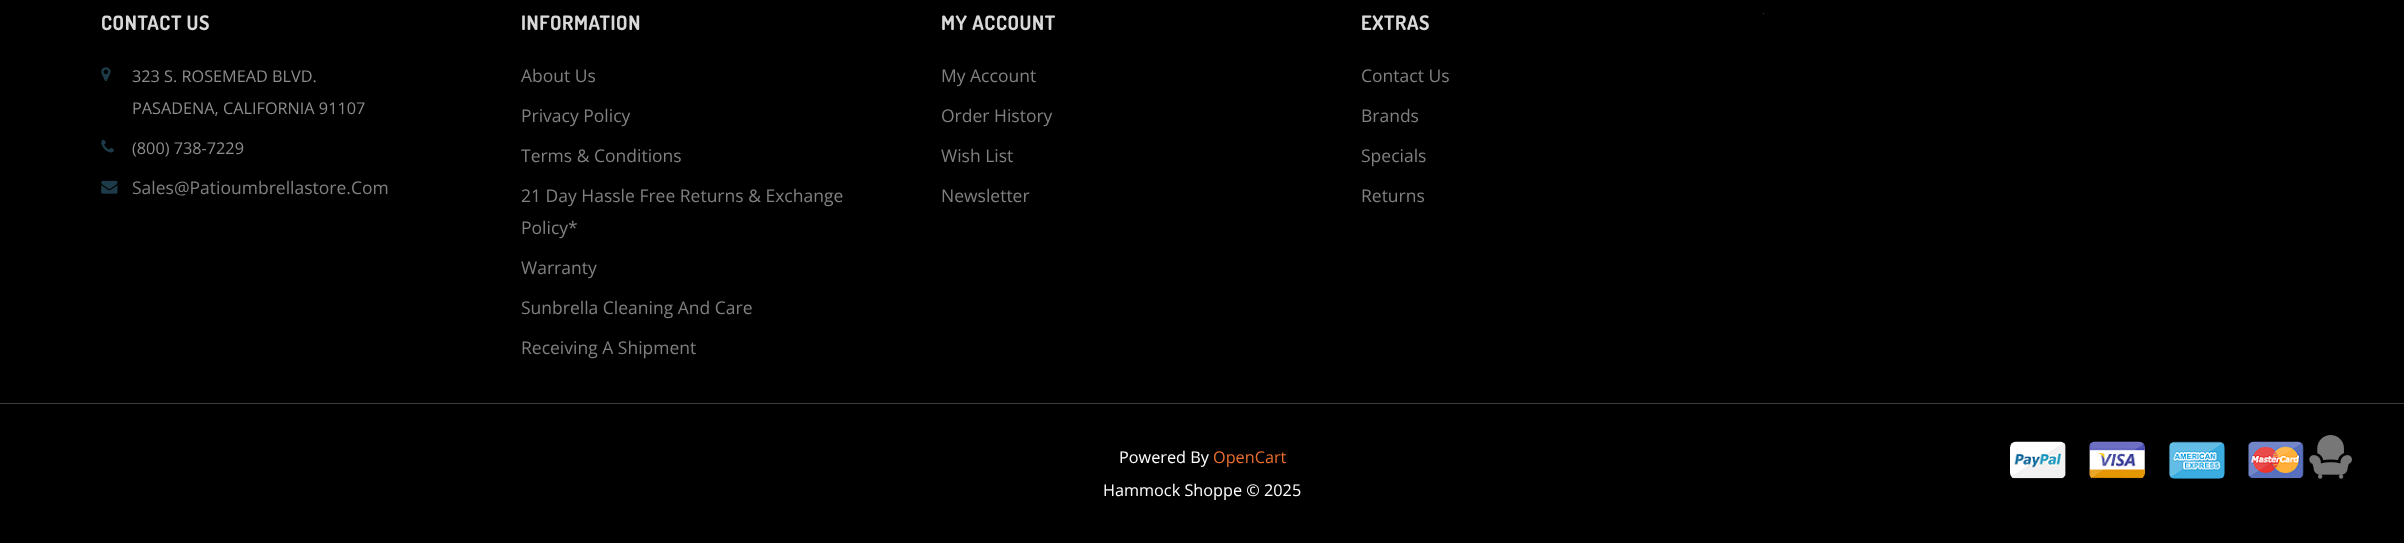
<!DOCTYPE html>
<meta charset="utf-8">
<style>body { margin: 0 } canvas { display: block }</style>
<canvas id="canvas" width="2404" height="543"></canvas>
<img id="img1" src="images/1.png" hidden>
<img id="img2" src="images/2.png" hidden>
<img id="img3" src="images/3.png" hidden>
<img id="img4" src="images/4.png" hidden>
<img id="img5" src="images/5.png" hidden>
<img id="img6" src="images/6.png" hidden>
<img id="img7" src="images/7.png" hidden>
<img id="img8" src="images/8.png" hidden>
<script>
window.onload = function () {
    const canvas = document.getElementById('canvas');
    const context = canvas.getContext('2d');
    context.miterLimit = 4;
    context.fontKerning = 'normal';

    context.fillStyle = 'rgb(0, 0, 0)';
    context.fillRect(0, 0, 2404, 543);
    context.fillStyle = 'rgb(61, 61, 61)';
    context.fillRect(1763, 13, 1, 1);
    context.drawImage(document.getElementById('img1'), 101, 67, 10, 15);
    context.drawImage(document.getElementById('img2'), 101, 139, 13, 14);
    context.drawImage(document.getElementById('img3'), 101, 180, 17, 14);
    context.fillRect(0, 403, 2404, 1);
    context.drawImage(document.getElementById('img4'), 2010, 441, 56, 38);
    context.drawImage(document.getElementById('img5'), 2089, 441, 56, 38);
    context.drawImage(document.getElementById('img6'), 2168, 441, 57, 38);
    context.drawImage(document.getElementById('img7'), 2248, 441, 56, 38);
    context.drawImage(document.getElementById('img8'), 2309, 435, 43, 44);
    context.letterSpacing = '0.6px';
    context.font = 'bold 20px Dosis';
    context.fillStyle = 'rgb(217, 217, 217)';
    context.fillText('CONTACT US', 101, 30);
    context.letterSpacing = '0px';
    context.font = '16.25px Open Sans';
    context.fillStyle = 'rgb(140, 140, 140)';
    context.fillText('323 S. ROSEMEAD BLVD.', 132, 82);
    context.fillText('PASADENA, CALIFORNIA 91107', 132, 114);
    context.fillText('(800) 738-7229', 132, 154);
    context.font = '17.5px Open Sans';
    context.fillStyle = 'rgb(128, 128, 128)';
    context.fillText('Sales@Patioumbrellastore.Com', 132, 194);
    context.letterSpacing = '0.6px';
    context.font = 'bold 20px Dosis';
    context.fillStyle = 'rgb(217, 217, 217)';
    context.fillText('INFORMATION', 521, 30);
    context.letterSpacing = '0px';
    context.font = '17.5px Open Sans';
    context.fillStyle = 'rgb(128, 128, 128)';
    context.fillText('About Us', 521, 82);
    context.fillText('Privacy Policy', 521, 122);
    context.fillText('Terms & Conditions', 521, 162);
    context.fillText('21 Day Hassle Free Returns & Exchange', 521, 202);
    context.fillText('Policy*', 521, 234);
    context.fillText('Warranty', 521, 274);
    context.fillText('Sunbrella Cleaning And Care', 521, 314);
    context.fillText('Receiving A Shipment', 521, 354);
    context.letterSpacing = '0.6px';
    context.font = 'bold 20px Dosis';
    context.fillStyle = 'rgb(217, 217, 217)';
    context.fillText('MY ACCOUNT', 941, 30);
    context.letterSpacing = '0px';
    context.font = '17.5px Open Sans';
    context.fillStyle = 'rgb(128, 128, 128)';
    context.fillText('My Account', 941, 82);
    context.fillText('Order History', 941, 122);
    context.fillText('Wish List', 941, 162);
    context.fillText('Newsletter', 941, 202);
    context.letterSpacing = '0.6px';
    context.font = 'bold 20px Dosis';
    context.fillStyle = 'rgb(217, 217, 217)';
    context.fillText('EXTRAS', 1361, 30);
    context.letterSpacing = '0px';
    context.font = '17.5px Open Sans';
    context.fillStyle = 'rgb(128, 128, 128)';
    context.fillText('Contact Us', 1361, 82);
    context.fillText('Brands', 1361, 122);
    context.fillText('Specials', 1361, 162);
    context.fillText('Returns', 1361, 202);
    context.font = '16.25px Open Sans';
    context.fillStyle = 'rgb(255, 255, 255)';
    context.fillText('Powered By', 1119, 463);
    context.fillStyle = 'rgb(235, 110, 45)';
    context.fillText('OpenCart', 1213, 463);
    context.fillStyle = 'rgb(255, 255, 255)';
    context.fillText('Hammock Shoppe © 2025', 1103, 496);
};
</script>
